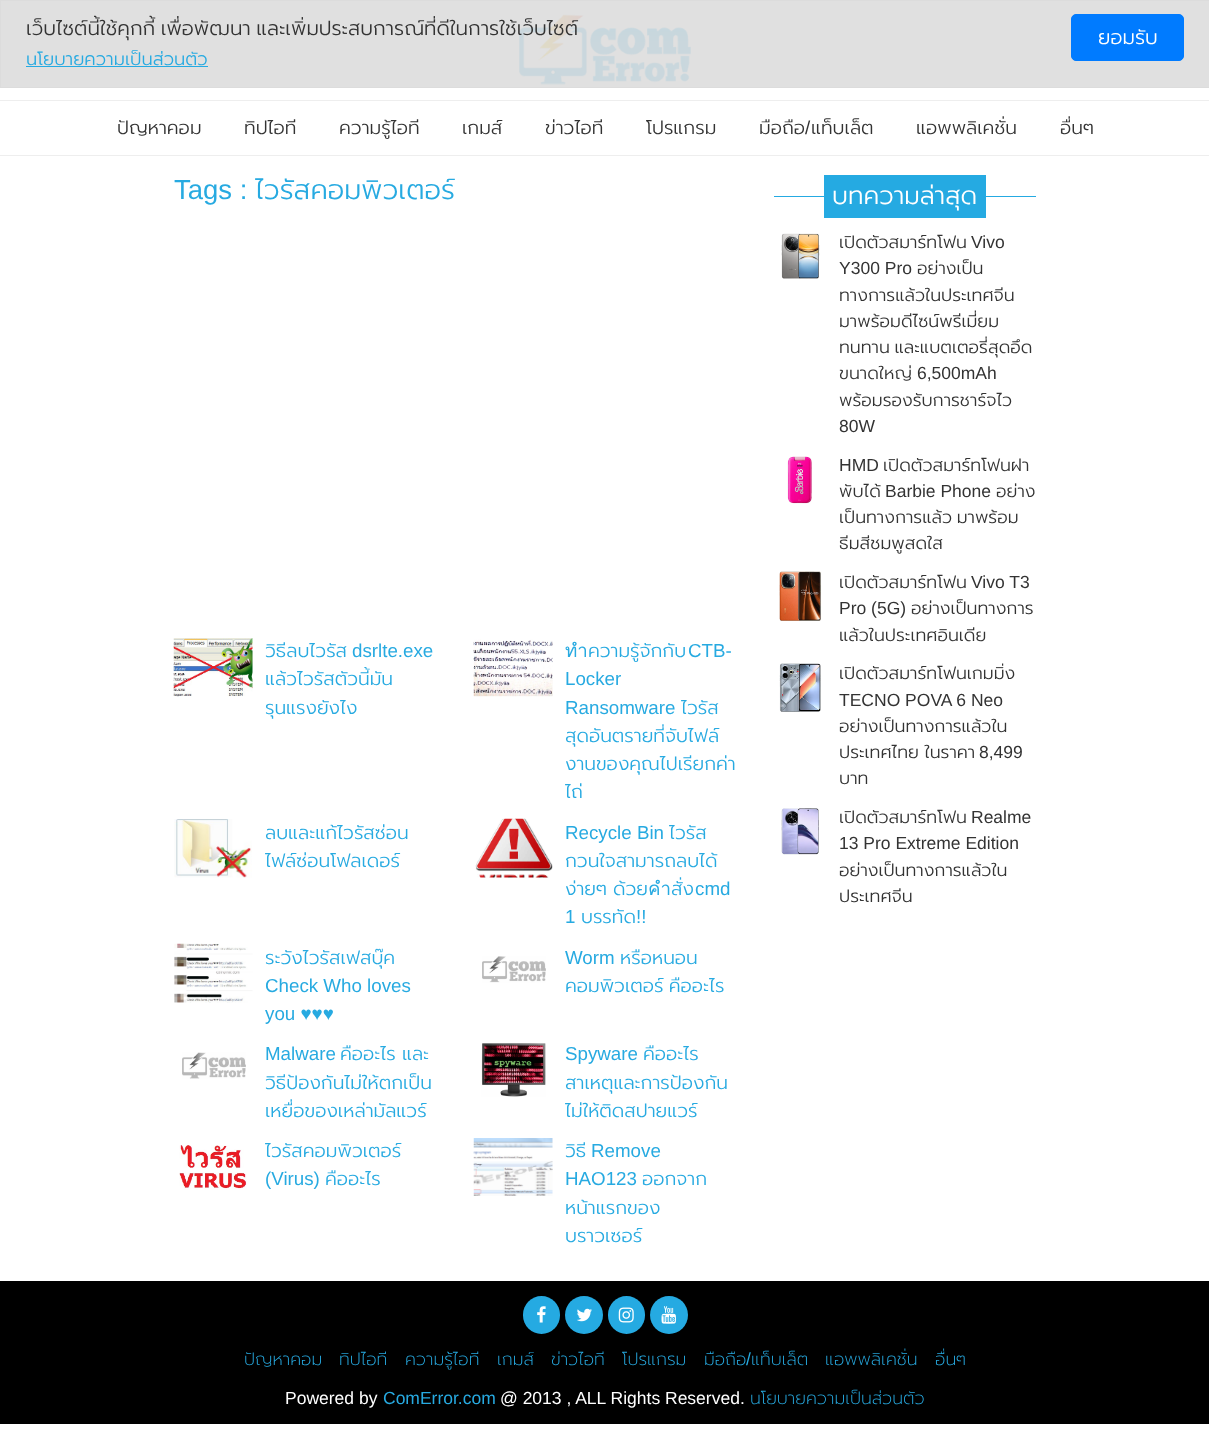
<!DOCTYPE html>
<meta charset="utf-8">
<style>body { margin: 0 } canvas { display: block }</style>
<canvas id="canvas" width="1209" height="1445"></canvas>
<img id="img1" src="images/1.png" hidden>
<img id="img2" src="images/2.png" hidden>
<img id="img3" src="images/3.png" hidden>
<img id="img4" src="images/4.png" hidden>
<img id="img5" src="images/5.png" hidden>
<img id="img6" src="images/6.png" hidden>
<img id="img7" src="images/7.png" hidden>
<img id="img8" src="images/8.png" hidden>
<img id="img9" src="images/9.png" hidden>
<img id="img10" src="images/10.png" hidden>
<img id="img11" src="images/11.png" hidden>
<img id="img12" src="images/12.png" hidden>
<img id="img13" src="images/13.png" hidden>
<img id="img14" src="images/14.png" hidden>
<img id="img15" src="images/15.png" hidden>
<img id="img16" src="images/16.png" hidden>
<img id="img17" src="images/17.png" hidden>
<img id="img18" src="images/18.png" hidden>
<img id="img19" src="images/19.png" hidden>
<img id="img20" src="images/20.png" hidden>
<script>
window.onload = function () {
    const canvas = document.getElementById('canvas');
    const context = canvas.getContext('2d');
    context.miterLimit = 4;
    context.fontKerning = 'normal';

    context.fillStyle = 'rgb(255, 255, 255)';
    context.fillRect(0, 0, 1209, 1445);
    context.fillStyle = 'rgb(224, 224, 224)';
    context.fillRect(1, 1, 1208, 86);
    context.drawImage(document.getElementById('img1'), 519, 14, 172, 71);
    context.strokeStyle = 'rgb(220, 220, 220)';
    context.strokeRect(0.5, 0.5, 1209, 87);
    context.fillStyle = 'rgb(37, 170, 226)';
    context.fillRect(26, 66, 182, 1);
    context.fillStyle = 'rgb(0, 123, 255)';
    context.beginPath();
    context.roundRect(1071.5, 14.5, 112, 46, 4.5);
    context.fill();
    context.strokeStyle = 'rgb(0, 123, 255)';
    context.stroke();
    context.fillStyle = 'rgb(238, 238, 238)';
    context.fillRect(0, 100, 1209, 1);
    context.fillRect(0, 155, 1209, 1);
    context.drawImage(document.getElementById('img2'), 173, 638, 80, 59);
    context.drawImage(document.getElementById('img3'), 473, 639, 80, 58);
    context.drawImage(document.getElementById('img4'), 174, 819, 78, 59);
    context.drawImage(document.getElementById('img5'), 475, 818, 78, 60);
    context.drawImage(document.getElementById('img6'), 174, 943, 79, 60);
    context.drawImage(document.getElementById('img7'), 482, 956, 64, 27);
    context.drawImage(document.getElementById('img8'), 182, 1052, 64, 27);
    context.drawImage(document.getElementById('img9'), 481, 1043, 65, 54);
    context.drawImage(document.getElementById('img10'), 179, 1145, 68, 45);
    context.drawImage(document.getElementById('img11'), 473, 1138, 80, 58);
    context.fillStyle = 'rgb(37, 170, 226)';
    context.fillRect(824, 175, 162, 43);
    context.fillRect(774, 196, 262, 1);
    context.drawImage(document.getElementById('img12'), 781, 233, 39, 46);
    context.drawImage(document.getElementById('img13'), 787, 456, 25, 48);
    context.drawImage(document.getElementById('img14'), 779, 571, 43, 50);
    context.drawImage(document.getElementById('img15'), 779, 663, 42, 49);
    context.drawImage(document.getElementById('img16'), 781, 808, 38, 47);
    context.fillStyle = 'rgb(0, 0, 0)';
    context.fillRect(0, 1281, 1209, 143);
    context.fillStyle = 'rgb(37, 170, 226)';
    context.beginPath();
    context.roundRect(523, 1296, 37, 38, 18.5);
    context.fill();
    context.drawImage(document.getElementById('img17'), 537, 1306, 9, 17);
    context.beginPath();
    context.arc(584, 1315, 19, 0, 2 * Math.PI);
    context.fill();
    context.drawImage(document.getElementById('img18'), 577, 1308, 15, 14);
    context.beginPath();
    context.roundRect(608, 1296, 37, 38, 18.5);
    context.fill();
    context.drawImage(document.getElementById('img19'), 618, 1307, 16, 16);
    context.beginPath();
    context.arc(669, 1315, 19, 0, 2 * Math.PI);
    context.fill();
    context.drawImage(document.getElementById('img20'), 661, 1306, 15, 18);
    context.wordSpacing = '-2px';
    context.font = '300 20px Prompt';
    context.fillStyle = 'rgb(51, 51, 51)';
    context.fillText('เว็บไซต์นี้ใช้คุกกี้ เพื่อพัฒนา และเพิ่มประสบการณ์ที่ดีในการใช้เว็บไซต์', 26, 35);
    context.wordSpacing = '0px';
    context.font = '300 18px Prompt';
    context.fillStyle = 'rgb(39, 170, 225)';
    context.fillText('นโยบายความเป็นส่วนตัว', 26, 65);
    context.font = '300 20px Prompt';
    context.fillStyle = 'rgb(255, 255, 255)';
    context.fillText('ยอมรับ', 1098, 44);
    context.font = '300 18.75px Prompt';
    context.fillStyle = 'rgb(51, 51, 51)';
    context.fillText('ปัญหาคอม', 117, 134);
    context.fillText('ทิปไอที', 244, 134);
    context.fillText('ความรู้ไอที', 339, 134);
    context.fillText('เกมส์', 462, 134);
    context.fillText('ข่าวไอที', 545, 134);
    context.fillText('โปรแกรม', 646, 134);
    context.fillText('มือถือ', 759, 134);
    context.font = '18.75px Liberation Sans';
    context.fillText('/', 805, 134);
    context.font = '300 18.75px Prompt';
    context.fillText('แท็บเล็ต', 811, 134);
    context.fillText('แอพพลิเคชั่น', 916, 134);
    context.fillText('อื่นๆ', 1060, 134);
    context.font = '27.5px Liberation Sans';
    context.fillStyle = 'rgb(39, 170, 225)';
    context.fillText('Tags :', 174, 199);
    context.font = '300 27.5px Prompt';
    context.fillText('ไวรัสคอมพิวเตอร์', 255, 199);
    context.font = '300 18.75px Prompt';
    context.fillText('วิธีลบไวรัส', 265, 657);
    context.font = '18.75px Liberation Sans';
    context.fillText('dsrlte.exe', 352, 657);
    context.font = '300 18.75px Prompt';
    context.fillText('แล้วไวรัสตัวนี้มัน', 265, 685);
    context.fillText('รุนแรงยังไง', 265, 714);
    context.fillText('ทำความรู้จักกับ', 565, 657);
    context.font = '18.75px Liberation Sans';
    context.fillText('CTB-', 688, 657);
    context.fillText('Locker', 565, 685);
    context.fillText('Ransomware', 565, 714);
    context.font = '300 18.75px Prompt';
    context.fillText('ไวรัส', 681, 714);
    context.fillText('สุดอันตรายที่จับไฟล์', 565, 742);
    context.fillText('งานของคุณไปเรียกค่า', 565, 770);
    context.fillText('ไถ่', 565, 798);
    context.fillText('ลบและแก้ไวรัสซ่อน', 265, 839);
    context.fillText('ไฟล์ซ่อนโฟลเดอร์', 265, 867);
    context.font = '18.75px Liberation Sans';
    context.fillText('Recycle Bin', 565, 839);
    context.font = '300 18.75px Prompt';
    context.fillText('ไวรัส', 669, 839);
    context.fillText('กวนใจสามารถลบได้', 565, 867);
    context.wordSpacing = '-1px';
    context.fillText('ง่ายๆ ด้วยคำสั่ง', 565, 895);
    context.wordSpacing = '0px';
    context.font = '18.75px Liberation Sans';
    context.fillText('cmd', 695, 895);
    context.fillText('1', 565, 923);
    context.font = '300 18.75px Prompt';
    context.fillText('บรรทัด', 581, 923);
    context.font = '18.75px Liberation Sans';
    context.fillText('!!', 636, 923);
    context.font = '300 18.75px Prompt';
    context.fillText('ระวังไวรัสเฟสบุ๊ค', 265, 964);
    context.font = '18.75px Liberation Sans';
    context.fillText('Check Who loves', 265, 992);
    context.fillText('you ♥♥♥', 265, 1020);
    context.fillText('Worm', 565, 964);
    context.font = '300 18.75px Prompt';
    context.fillText('หรือหนอน', 620, 964);
    context.wordSpacing = '-2px';
    context.fillText('คอมพิวเตอร์ คืออะไร', 565, 992);
    context.wordSpacing = '0px';
    context.font = '18.75px Liberation Sans';
    context.fillText('Malware', 265, 1060);
    context.wordSpacing = '-1px';
    context.font = '300 18.75px Prompt';
    context.fillText('คืออะไร และ', 340, 1060);
    context.wordSpacing = '0px';
    context.fillText('วิธีป้องกันไม่ให้ตกเป็น', 265, 1089);
    context.fillText('เหยื่อของเหล่ามัลแวร์', 265, 1117);
    context.font = '18.75px Liberation Sans';
    context.fillText('Spyware', 565, 1060);
    context.font = '300 18.75px Prompt';
    context.fillText('คืออะไร', 643, 1060);
    context.fillText('สาเหตุและการป้องกัน', 565, 1089);
    context.fillText('ไม่ให้ติดสปายแวร์', 565, 1117);
    context.fillText('ไวรัสคอมพิวเตอร์', 265, 1157);
    context.font = '18.75px Liberation Sans';
    context.fillText('(Virus)', 265, 1185);
    context.font = '300 18.75px Prompt';
    context.fillText('คืออะไร', 325, 1185);
    context.fillText('วิธี', 565, 1157);
    context.font = '18.75px Liberation Sans';
    context.fillText('Remove', 591, 1157);
    context.fillText('HAO123', 565, 1185);
    context.font = '300 18.75px Prompt';
    context.fillText('ออกจาก', 642, 1185);
    context.fillText('หน้าแรกของ', 565, 1214);
    context.fillText('บราวเซอร์', 565, 1242);
    context.font = '300 25px Prompt';
    context.fillStyle = 'rgb(255, 255, 255)';
    context.fillText('บทความล่าสุด', 832, 204);
    context.font = '300 17.5px Prompt';
    context.fillStyle = 'rgb(51, 51, 51)';
    context.fillText('เปิดตัวสมาร์ทโฟน', 839, 248);
    context.font = '17.5px Liberation Sans';
    context.fillText('Vivo', 971, 248);
    context.fillText('Y300 Pro', 839, 274);
    context.font = '300 17.5px Prompt';
    context.fillText('อย่างเป็น', 917, 274);
    context.fillText('ทางการแล้วในประเทศจีน', 839, 301);
    context.fillText('มาพร้อมดีไซน์พรีเมี่ยม', 839, 327);
    context.wordSpacing = '-2px';
    context.fillText('ทนทาน และแบตเตอรี่สุดอึด', 839, 353);
    context.wordSpacing = '0px';
    context.fillText('ขนาดใหญ่', 839, 379);
    context.font = '17.5px Liberation Sans';
    context.fillText('6,500mAh', 917, 379);
    context.font = '300 17.5px Prompt';
    context.fillText('พร้อมรองรับการชาร์จไว', 839, 406);
    context.font = '17.5px Liberation Sans';
    context.fillText('80W', 839, 432);
    context.fillText('HMD', 839, 471);
    context.font = '300 17.5px Prompt';
    context.fillText('เปิดตัวสมาร์ทโฟนฝา', 883, 471);
    context.fillText('พับได้', 839, 497);
    context.font = '17.5px Liberation Sans';
    context.fillText('Barbie Phone', 885, 497);
    context.font = '300 17.5px Prompt';
    context.fillText('อย่าง', 996, 497);
    context.wordSpacing = '-2px';
    context.fillText('เป็นทางการแล้ว มาพร้อม', 839, 523);
    context.wordSpacing = '0px';
    context.fillText('ธีมสีชมพูสดใส', 839, 549);
    context.fillText('เปิดตัวสมาร์ทโฟน', 839, 588);
    context.font = '17.5px Liberation Sans';
    context.fillText('Vivo T3', 971, 588);
    context.fillText('Pro (5G)', 839, 614);
    context.font = '300 17.5px Prompt';
    context.fillText('อย่างเป็นทางการ', 911, 614);
    context.fillText('แล้วในประเทศอินเดีย', 839, 641);
    context.fillText('เปิดตัวสมาร์ทโฟนเกมมิ่ง', 839, 679);
    context.font = '17.5px Liberation Sans';
    context.fillText('TECNO POVA 6 Neo', 839, 706);
    context.font = '300 17.5px Prompt';
    context.fillText('อย่างเป็นทางการแล้วใน', 839, 732);
    context.wordSpacing = '-1px';
    context.fillText('ประเทศไทย ในราคา', 839, 758);
    context.wordSpacing = '0px';
    context.font = '17.5px Liberation Sans';
    context.fillText('8,499', 979, 758);
    context.font = '300 17.5px Prompt';
    context.fillText('บาท', 839, 784);
    context.fillText('เปิดตัวสมาร์ทโฟน', 839, 823);
    context.font = '17.5px Liberation Sans';
    context.fillText('Realme', 971, 823);
    context.fillText('13 Pro Extreme Edition', 839, 849);
    context.font = '300 17.5px Prompt';
    context.fillText('อย่างเป็นทางการแล้วใน', 839, 876);
    context.fillText('ประเทศจีน', 839, 902);
    context.font = '300 17.5px "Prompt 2"';
    context.fillStyle = 'rgb(39, 170, 225)';
    context.fillText('ปัญหาคอม', 244, 1365);
    context.fillText('ทิปไอที', 339, 1365);
    context.fillText('ความรู้ไอที', 405, 1365);
    context.fillText('เกมส์', 497, 1365);
    context.fillText('ข่าวไอที', 551, 1365);
    context.fillText('โปรแกรม', 622, 1365);
    context.fillText('มือถือ', 704, 1365);
    context.font = '17.5px Liberation Sans';
    context.fillText('/', 746, 1365);
    context.font = '300 17.5px "Prompt 2"';
    context.fillText('แท็บเล็ต', 751, 1365);
    context.fillText('แอพพลิเคชั่น', 825, 1365);
    context.fillText('อื่นๆ', 935, 1365);
    context.font = '17.5px Liberation Sans';
    context.fillStyle = 'rgb(255, 255, 255)';
    context.fillText('Powered by', 285, 1404);
    context.fillStyle = 'rgb(39, 170, 225)';
    context.fillText('ComError.com', 383, 1404);
    context.fillStyle = 'rgb(255, 255, 255)';
    context.fillText('@ 2013 , ALL Rights Reserved.', 500, 1404);
    context.font = '300 17.5px "Prompt 2"';
    context.fillStyle = 'rgb(39, 170, 225)';
    context.fillText('นโยบายความเป็นส่วนตัว', 750, 1404);
};
</script>
